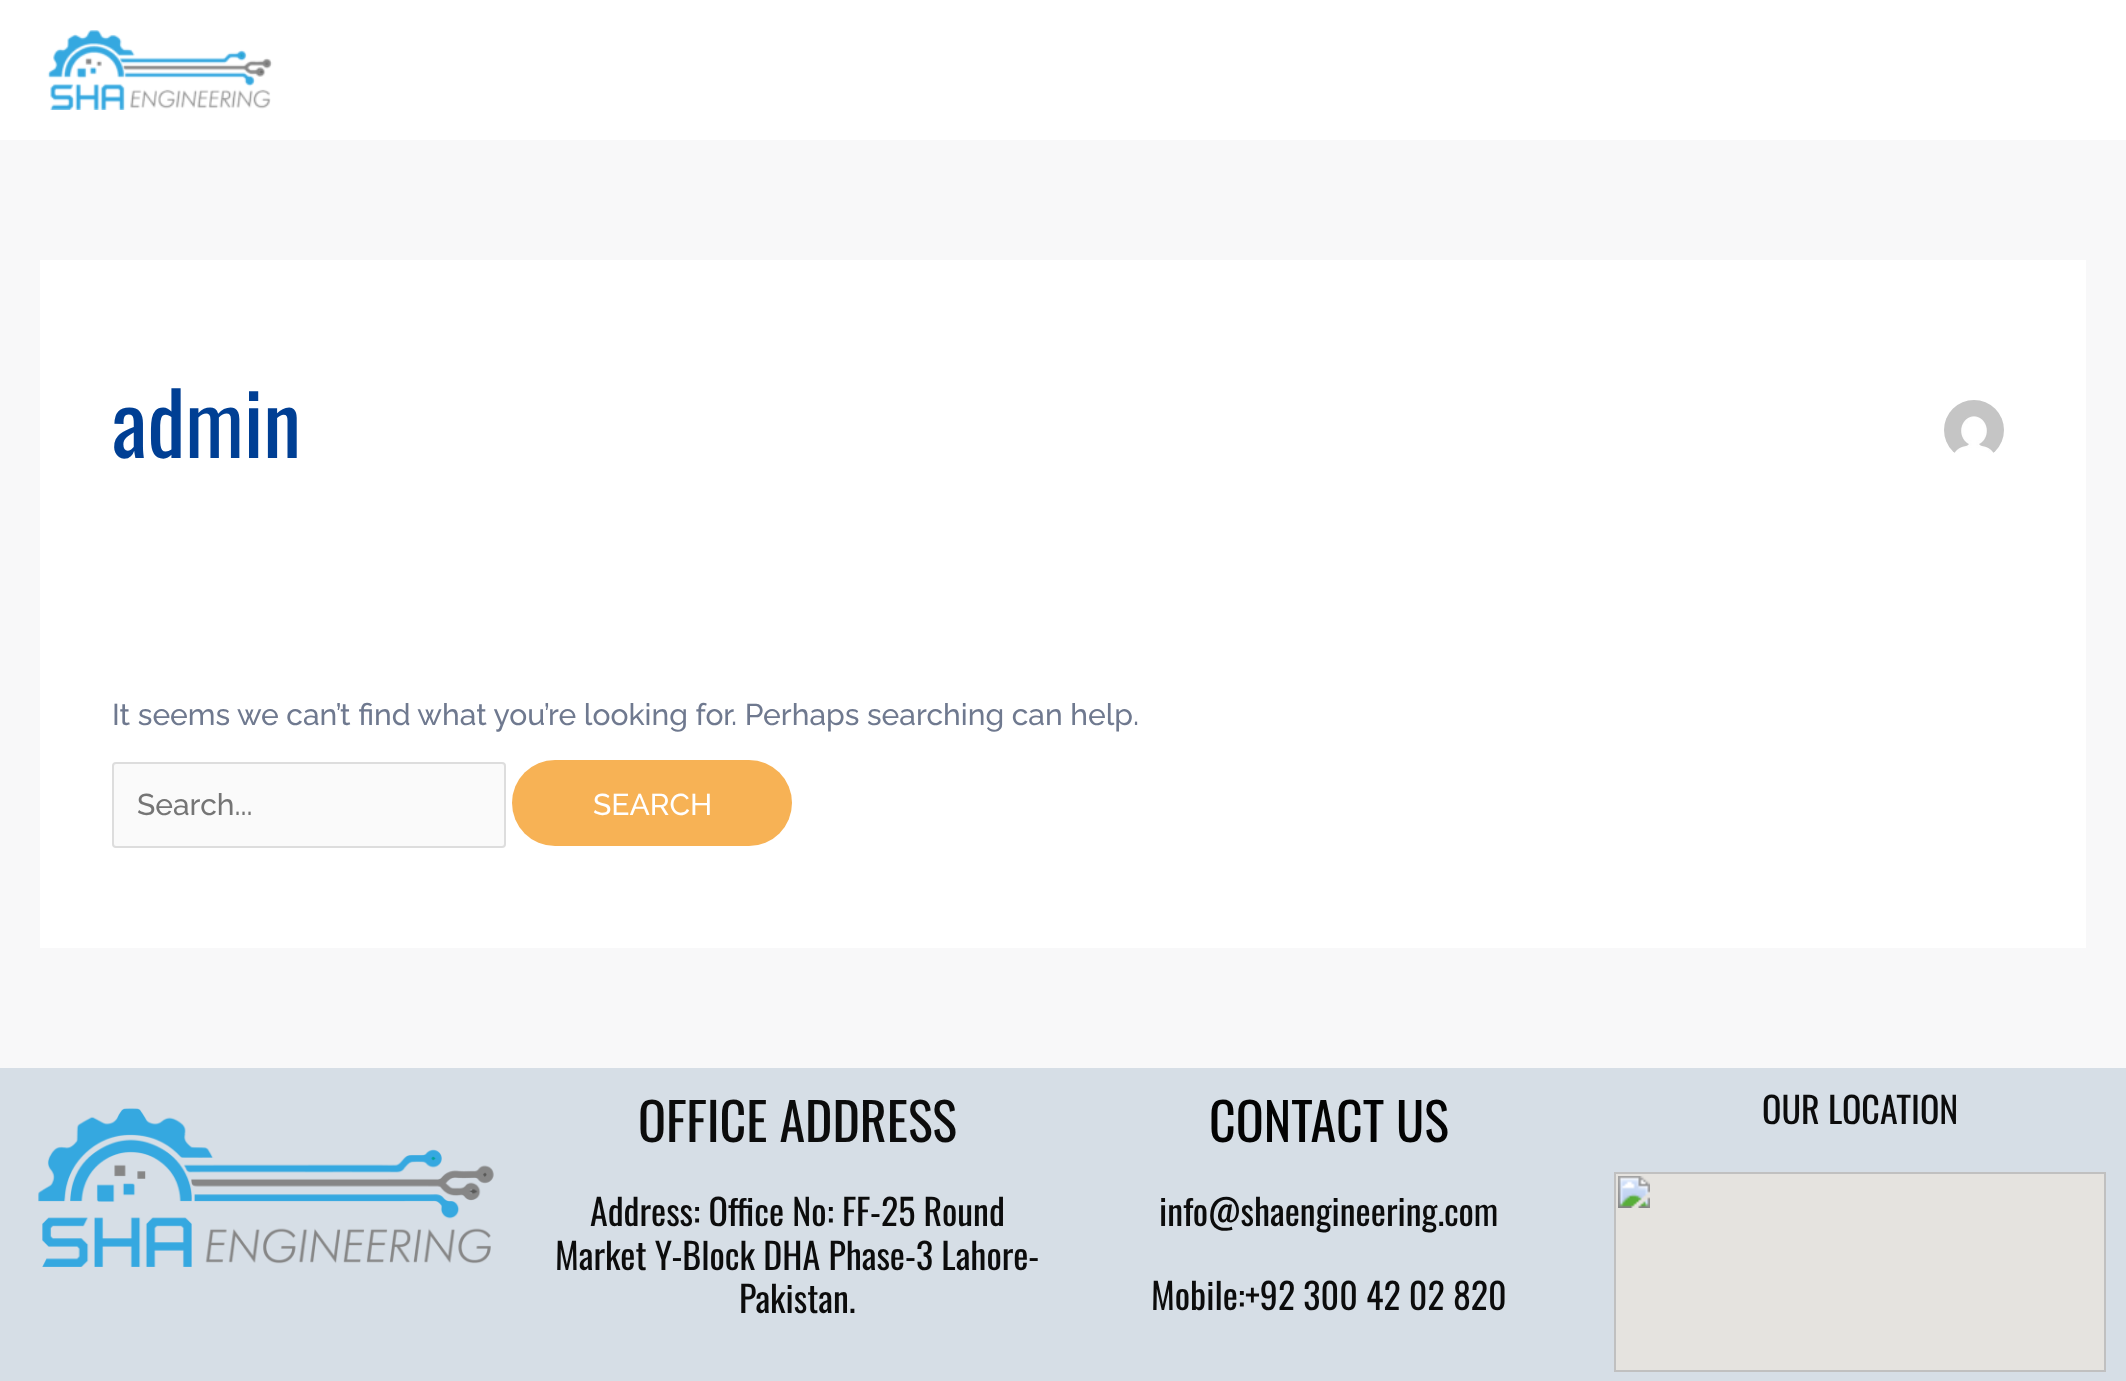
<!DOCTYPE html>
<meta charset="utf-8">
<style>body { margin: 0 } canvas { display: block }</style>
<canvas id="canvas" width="2126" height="1381"></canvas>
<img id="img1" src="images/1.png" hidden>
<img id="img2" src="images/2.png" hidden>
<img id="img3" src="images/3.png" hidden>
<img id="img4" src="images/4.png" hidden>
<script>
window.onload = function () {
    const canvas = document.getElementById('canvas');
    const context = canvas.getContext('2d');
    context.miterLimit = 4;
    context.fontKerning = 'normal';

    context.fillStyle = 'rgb(248, 248, 249)';
    context.fillRect(0, 0, 2126, 1381);
    context.fillStyle = 'rgb(255, 255, 255)';
    context.fillRect(0, 0, 2126, 140);
    context.drawImage(document.getElementById('img1'), 47, 30, 226, 80);
    context.fillRect(40, 260, 2046, 688);
    context.drawImage(document.getElementById('img2'), 1944, 400, 60, 53);
    context.fillStyle = 'rgb(250, 250, 250)';
    context.beginPath();
    context.roundRect(113, 763, 392, 84, 3);
    context.fill();
    context.strokeStyle = 'rgb(221, 221, 221)';
    context.lineWidth = 2;
    context.stroke();
    context.fillStyle = 'rgb(247, 178, 85)';
    context.beginPath();
    context.roundRect(512, 760, 280, 86, 43);
    context.fill();
    context.fillStyle = 'rgb(214, 222, 230)';
    context.fillRect(0, 1068, 2126, 313);
    context.drawImage(document.getElementById('img3'), 38, 1108, 456, 159);
    context.drawImage(document.getElementById('img4'), 1614, 1172, 492, 200);
    context.font = '86px Oswald';
    context.fillStyle = 'rgb(0, 63, 148)';
    context.fillText('admin', 112, 458);
    context.font = '100 30px Raleway';
    context.fillStyle = 'rgb(111, 121, 143)';
    context.fillText('It seems we can’t find what you’re looking for. Perhaps searching can help.', 112, 725);
    context.fillStyle = 'rgb(117, 117, 117)';
    context.fillText('Search...', 137, 815);
    context.fillStyle = 'rgb(255, 255, 255)';
    context.fillText('SEARCH', 593, 815);
    context.font = '52px Oswald';
    context.fillStyle = 'rgb(12, 12, 12)';
    context.fillText('OFFICE ADDRESS', 638, 1142);
    context.font = '36px Oswald';
    context.fillText('Address: Office No: FF-25 Round', 590, 1226);
    context.fillText('Market Y-Block DHA Phase-3 Lahore-', 555, 1270);
    context.fillText('Pakistan.', 739, 1313);
    context.font = '52px Oswald';
    context.fillStyle = 'rgb(3, 3, 3)';
    context.fillText('CONTACT US', 1209, 1142);
    context.font = '36px Oswald';
    context.fillStyle = 'rgb(12, 12, 12)';
    context.fillText('info@shaengineering.com', 1159, 1226);
    context.fillText('Mobile:+92 300 42 02 820', 1151, 1310);
    context.fillText('OUR LOCATION', 1762, 1124);
};
</script>
